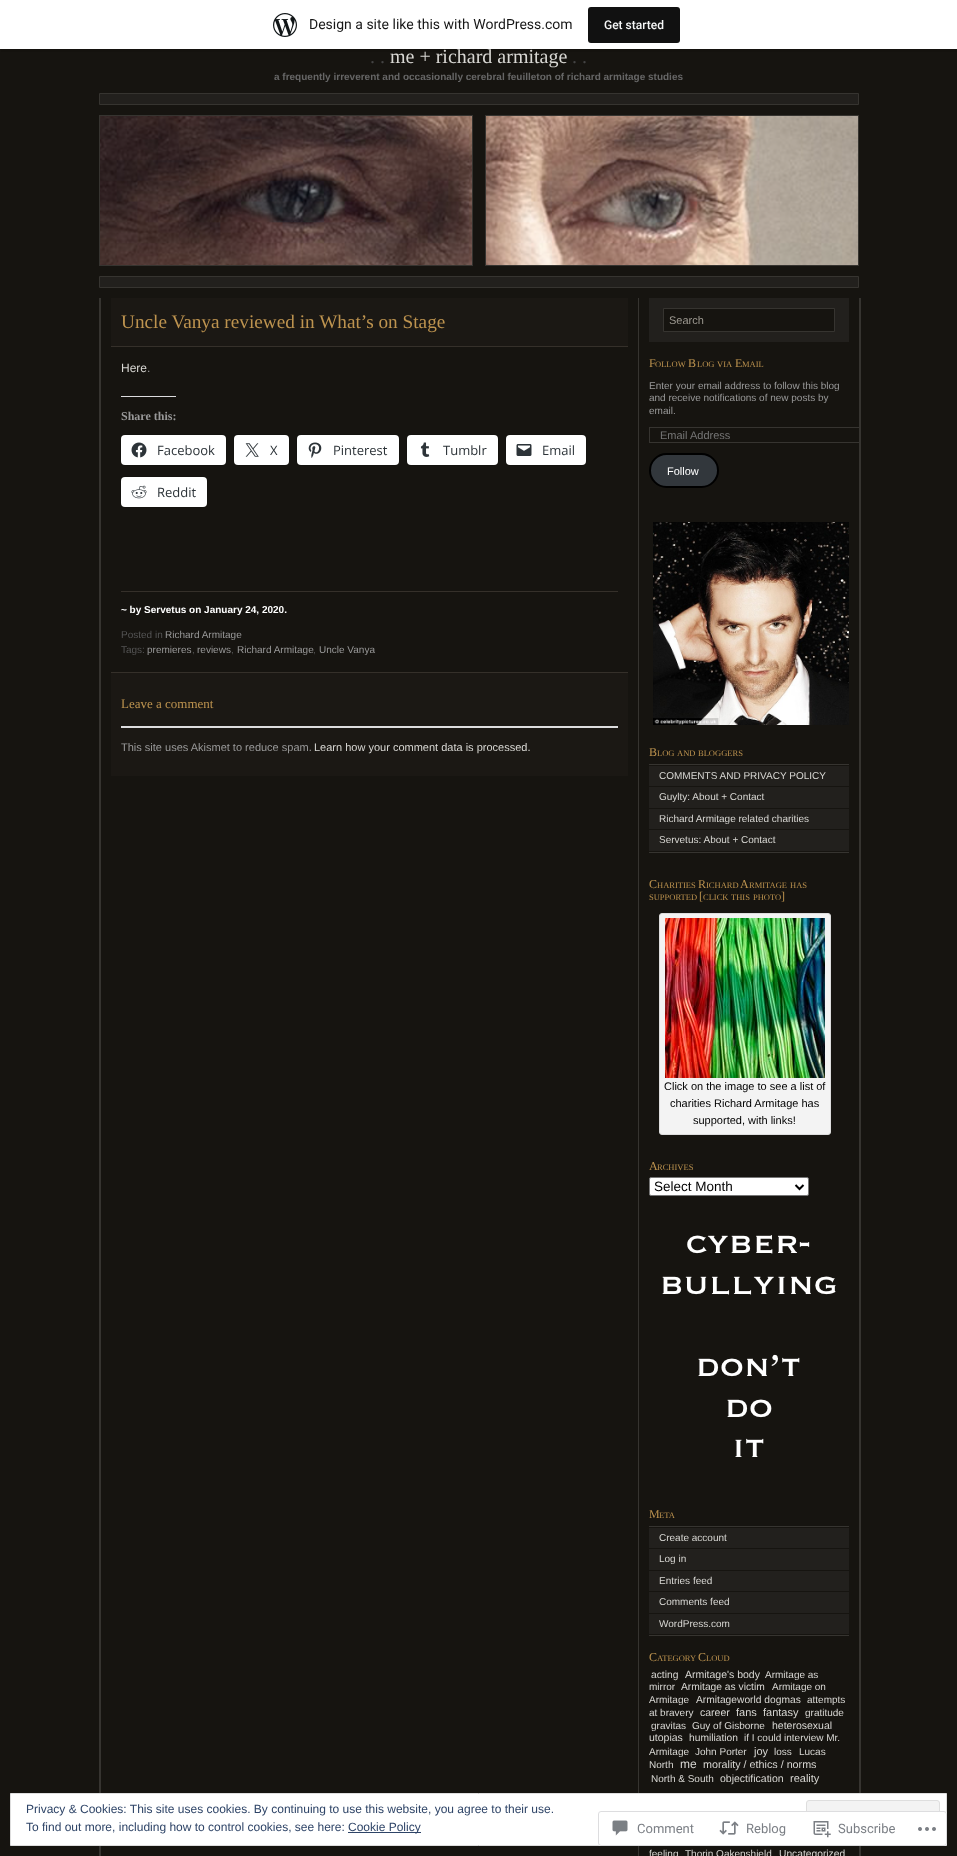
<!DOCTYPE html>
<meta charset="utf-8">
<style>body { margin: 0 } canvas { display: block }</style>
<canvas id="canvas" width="957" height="1856"></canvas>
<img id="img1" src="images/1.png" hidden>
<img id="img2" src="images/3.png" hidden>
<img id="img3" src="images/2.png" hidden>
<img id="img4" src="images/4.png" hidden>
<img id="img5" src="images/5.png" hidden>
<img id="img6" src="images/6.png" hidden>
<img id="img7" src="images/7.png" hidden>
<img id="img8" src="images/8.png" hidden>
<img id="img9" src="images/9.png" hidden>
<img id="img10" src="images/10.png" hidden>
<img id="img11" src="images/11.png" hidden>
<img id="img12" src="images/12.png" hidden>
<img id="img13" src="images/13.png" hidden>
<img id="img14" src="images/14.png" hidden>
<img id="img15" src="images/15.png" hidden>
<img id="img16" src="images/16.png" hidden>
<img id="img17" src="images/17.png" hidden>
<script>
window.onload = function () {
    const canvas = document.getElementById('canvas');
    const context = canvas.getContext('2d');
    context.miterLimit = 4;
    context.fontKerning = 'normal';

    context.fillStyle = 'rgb(22, 20, 16)';
    context.fillRect(0, 0, 957, 1856);
    context.fillStyle = 'rgba(0, 0, 0, 0.08)';
    context.beginPath();
    context.moveTo(1, 49);
    context.lineTo(1, 52);
    context.lineTo(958, 52);
    context.lineTo(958, 3);
    context.lineTo(957, 3);
    context.lineTo(957, 49);
    context.closePath();
    context.fill();
    context.fillStyle = 'rgb(255, 255, 255)';
    context.fillRect(0, 0, 957, 49);
    context.drawImage(document.getElementById('img1'), 273, 13, 24, 24);
    context.fillStyle = 'rgb(17, 17, 17)';
    context.beginPath();
    context.roundRect(588, 7, 92, 36, 3);
    context.fill();
    context.fillStyle = 'rgb(34, 32, 29)';
    context.beginPath();
    context.rect(99.5, 93.5, 759, 11);
    context.fill();
    context.strokeStyle = 'rgb(54, 52, 48)';
    context.stroke();
    context.drawImage(document.getElementById('img2'), 100, 116, 758, 149);
    context.drawImage(document.getElementById('img3'), 99, 115, 760, 151);
    context.beginPath();
    context.rect(99.5, 276.5, 759, 11);
    context.fill();
    context.stroke();
    context.drawImage(document.getElementById('img4'), 100, 298, 760, 1558);
    context.fillStyle = 'rgb(54, 52, 48)';
    context.fillRect(860, 298, 1, 1558);
    context.fillRect(99, 298, 1, 1558);
    context.fillStyle = 'rgb(27, 24, 20)';
    context.fillRect(111, 298, 517, 48);
    context.fillStyle = 'rgb(53, 48, 42)';
    context.fillRect(111, 346, 517, 1);
    context.fillStyle = 'rgb(220, 220, 222)';
    context.fillRect(121, 396, 55, 1);
    context.beginPath();
    context.roundRect(120.5, 434.5, 106, 31, 4.5);
    context.strokeStyle = 'rgb(19, 18, 14)';
    context.stroke();
    context.fillStyle = 'rgb(255, 255, 255)';
    context.beginPath();
    context.roundRect(121, 435, 105, 30, 4);
    context.fill();
    context.drawImage(document.getElementById('img5'), 131, 442, 16, 16);
    context.beginPath();
    context.roundRect(233.5, 434.5, 56, 31, 4.5);
    context.stroke();
    context.beginPath();
    context.roundRect(234, 435, 55, 30, 4);
    context.fill();
    context.drawImage(document.getElementById('img6'), 245, 443, 14, 14);
    context.beginPath();
    context.roundRect(296.5, 434.5, 103, 31, 4.5);
    context.stroke();
    context.beginPath();
    context.roundRect(297, 435, 102, 30, 4);
    context.fill();
    context.drawImage(document.getElementById('img7'), 308, 442, 14, 16);
    context.beginPath();
    context.roundRect(406.5, 434.5, 92, 31, 4.5);
    context.stroke();
    context.beginPath();
    context.roundRect(407, 435, 91, 30, 4);
    context.fill();
    context.drawImage(document.getElementById('img8'), 420, 442, 10, 15);
    context.beginPath();
    context.roundRect(505.5, 434.5, 81, 31, 4.5);
    context.stroke();
    context.beginPath();
    context.roundRect(506, 435, 80, 30, 4);
    context.fill();
    context.drawImage(document.getElementById('img9'), 516, 444, 16, 12);
    context.beginPath();
    context.roundRect(120.5, 476.5, 87, 31, 4.5);
    context.stroke();
    context.beginPath();
    context.roundRect(121, 477, 86, 30, 4);
    context.fill();
    context.drawImage(document.getElementById('img10'), 131, 485, 16, 14);
    context.fillStyle = 'rgb(53, 48, 42)';
    context.fillRect(121, 591, 497, 1);
    context.fillStyle = 'rgb(27, 24, 20)';
    context.fillRect(111, 673, 517, 103);
    context.fillStyle = 'rgb(53, 48, 42)';
    context.fillRect(111, 672, 517, 1);
    context.fillStyle = 'rgb(220, 220, 222)';
    context.fillRect(121, 726, 497, 2);
    context.fillStyle = 'rgb(34, 32, 29)';
    context.fillRect(649, 298, 200, 44);
    context.fillStyle = 'rgb(22, 20, 16)';
    context.beginPath();
    context.rect(663.5, 308.5, 171, 23);
    context.fill();
    context.strokeStyle = 'rgb(54, 52, 48)';
    context.stroke();
    context.save();
    context.beginPath();
    context.rect(639, 298, 220, 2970);
    context.clip();
    context.strokeRect(649.5, 427.5, 211, 15);
    context.restore();
    context.fillStyle = 'rgb(50, 55, 60)';
    context.beginPath();
    context.roundRect(650, 454, 68, 33, 16.5);
    context.fill();
    context.strokeStyle = 'rgb(0, 0, 0)';
    context.lineWidth = 2;
    context.stroke();
    context.drawImage(document.getElementById('img11'), 653, 522, 196, 203);
    context.fillStyle = 'rgb(54, 52, 48)';
    context.fillRect(649, 764, 200, 1);
    context.fillRect(649, 852, 200, 1);
    context.fillStyle = 'rgb(34, 32, 29)';
    context.fillRect(649, 766, 200, 20);
    context.fillRect(649, 787, 200, 21);
    context.fillRect(649, 809, 200, 20);
    context.fillRect(649, 830, 200, 21);
    context.fillStyle = 'rgb(243, 243, 243)';
    context.beginPath();
    context.roundRect(659.5, 913.5, 171, 221, 2.5);
    context.fill();
    context.strokeStyle = 'rgb(221, 221, 221)';
    context.lineWidth = 1;
    context.stroke();
    context.drawImage(document.getElementById('img12'), 665, 918, 160, 160);
    context.fillStyle = 'rgb(255, 255, 255)';
    context.beginPath();
    context.roundRect(649.5, 1177.5, 159, 18, 1.5);
    context.fill();
    context.strokeStyle = 'rgb(118, 118, 118)';
    context.stroke();
    context.beginPath();
    context.moveTo(795.5, 1185);
    context.lineTo(799.5, 1189);
    context.lineTo(803.5, 1185);
    context.strokeStyle = 'rgb(0, 0, 0)';
    context.lineWidth = 2;
    context.stroke();
    context.drawImage(document.getElementById('img13'), 662, 1235, 174, 222);
    context.fillStyle = 'rgb(54, 52, 48)';
    context.fillRect(649, 1526, 200, 1);
    context.fillRect(649, 1635, 200, 1);
    context.fillStyle = 'rgb(34, 32, 29)';
    context.fillRect(649, 1528, 200, 20);
    context.fillRect(649, 1549, 200, 21);
    context.fillRect(649, 1571, 200, 20);
    context.fillRect(649, 1592, 200, 21);
    context.fillRect(649, 1614, 200, 20);
    context.fillStyle = 'rgb(255, 255, 255)';
    context.beginPath();
    context.rect(10.5, 1793.5, 936, 52);
    context.fill();
    context.strokeStyle = 'rgb(222, 222, 222)';
    context.lineWidth = 1;
    context.stroke();
    context.fillStyle = 'rgb(243, 243, 243)';
    context.beginPath();
    context.roundRect(806.5, 1800.5, 133, 38, 2.5);
    context.fill();
    context.stroke();
    context.fillStyle = 'rgb(46, 68, 103)';
    context.fillRect(348, 1832, 73, 1);
    context.fillStyle = 'rgba(255, 255, 255, 0.98)';
    context.beginPath();
    context.roundRect(598, 1811, 349, 35, 3);
    context.fill();
    context.beginPath();
    context.roundRect(598.5, 1811.5, 348, 34, 2.5);
    context.strokeStyle = 'rgba(220, 220, 222, 0.98)';
    context.stroke();
    context.drawImage(document.getElementById('img14'), 612, 1820, 16, 16);
    context.drawImage(document.getElementById('img15'), 719, 1821, 20, 14);
    context.drawImage(document.getElementById('img16'), 813, 1821, 18, 17);
    context.drawImage(document.getElementById('img17'), 918, 1827, 18, 4);
    context.font = '14px Roboto';
    context.fillStyle = 'rgb(23, 23, 23)';
    context.fillText('Design a site like this with WordPress.com', 309, 29);
    context.font = '500 12px Roboto';
    context.fillStyle = 'rgb(246, 247, 247)';
    context.fillText('Get started', 604, 29);
    context.font = '20px Liberation Serif';
    context.fillStyle = 'rgb(68, 68, 68)';
    context.fillText('. .', 370, 63);
    context.fillStyle = 'rgb(216, 215, 211)';
    context.fillText('me + richard armitage', 390, 63);
    context.fillStyle = 'rgb(68, 68, 68)';
    context.fillText('. .', 572, 63);
    context.font = 'bold 10px Liberation Sans';
    context.fillStyle = 'rgb(102, 102, 102)';
    context.fillText('a frequently irreverent and occasionally cerebral feuilleton of richard armitage studies', 274, 80);
    context.font = '19.25px Liberation Serif';
    context.fillStyle = 'rgb(189, 147, 79)';
    context.fillText('Uncle Vanya reviewed in What’s on Stage', 121, 328);
    context.font = '12px Liberation Sans';
    context.fillStyle = 'rgb(216, 215, 211)';
    context.fillText('Here', 121, 372);
    context.fillStyle = 'rgb(153, 153, 153)';
    context.fillText('.', 147, 372);
    context.font = 'bold 12px Liberation Serif';
    context.fillText('Share this:', 121, 420);
    context.font = '13px Open Sans';
    context.fillStyle = 'rgb(44, 51, 56)';
    context.fillText('Facebook', 157, 455);
    context.fillText('X', 270, 455);
    context.fillText('Pinterest', 333, 455);
    context.fillText('Tumblr', 443, 455);
    context.fillText('Email', 542, 455);
    context.fillText('Reddit', 157, 497);
    context.font = 'bold 10px Liberation Sans';
    context.fillStyle = 'rgb(255, 255, 255)';
    context.fillText('~ by Servetus on January 24, 2020.', 121, 613);
    context.font = '10px Liberation Sans';
    context.fillStyle = 'rgb(85, 85, 85)';
    context.fillText('Posted in', 121, 638);
    context.fillStyle = 'rgb(153, 153, 153)';
    context.fillText('Richard Armitage', 165, 638);
    context.fillStyle = 'rgb(85, 85, 85)';
    context.fillText('Tags:', 121, 653);
    context.fillStyle = 'rgb(153, 153, 153)';
    context.fillText('premieres', 147, 653);
    context.fillStyle = 'rgb(85, 85, 85)';
    context.fillText(',', 192, 653);
    context.fillStyle = 'rgb(153, 153, 153)';
    context.fillText('reviews', 197, 653);
    context.fillStyle = 'rgb(85, 85, 85)';
    context.fillText(',', 231, 653);
    context.fillStyle = 'rgb(153, 153, 153)';
    context.fillText('Richard Armitage', 237, 653);
    context.fillStyle = 'rgb(85, 85, 85)';
    context.fillText(',', 313, 653);
    context.fillStyle = 'rgb(153, 153, 153)';
    context.fillText('Uncle Vanya', 319, 653);
    context.font = '13px Liberation Serif';
    context.fillStyle = 'rgb(189, 147, 79)';
    context.fillText('Leave a comment', 121, 708);
    context.font = '11px Liberation Sans';
    context.fillStyle = 'rgb(153, 153, 153)';
    context.fillText('This site uses Akismet to reduce spam.', 121, 751);
    context.fillStyle = 'rgb(216, 215, 211)';
    context.fillText('Learn how your comment data is processed.', 314, 751);
    context.fillStyle = 'rgb(156, 152, 144)';
    context.fillText('Search', 669, 324);
    context.font = '12px Liberation Serif';
    context.fillStyle = 'rgb(189, 147, 79)';
    context.fillText('F', 649, 367);
    context.font = '8.5px Liberation Serif';
    context.fillText('OLLOW', 655, 367);
    context.font = '12px Liberation Serif';
    context.fillText('B', 688, 367);
    context.font = '8.5px Liberation Serif';
    context.fillText('LOG', 697, 367);
    context.fillText('VIA', 717, 367);
    context.font = '12px Liberation Serif';
    context.fillText('E', 735, 367);
    context.font = '8.5px Liberation Serif';
    context.fillText('MAIL', 742, 367);
    context.font = '10px Liberation Sans';
    context.fillStyle = 'rgb(153, 153, 153)';
    context.fillText('Enter your email address to follow this blog', 649, 389);
    context.fillText('and receive notifications of new posts by', 649, 401);
    context.fillText('email.', 649, 414);
    context.font = '11px Liberation Sans';
    context.fillStyle = 'rgb(117, 117, 117)';
    context.fillText('Email Address', 660, 439);
    context.fillStyle = 'rgb(255, 255, 255)';
    context.fillText('Follow', 667, 475);
    context.font = '12px Liberation Serif';
    context.fillStyle = 'rgb(189, 147, 79)';
    context.fillText('B', 649, 756);
    context.font = '8.5px Liberation Serif';
    context.fillText('LOG', 657, 756);
    context.fillText('AND', 677, 756);
    context.fillText('BLOGGERS', 698, 756);
    context.font = '10px Liberation Sans';
    context.fillStyle = 'rgb(216, 215, 211)';
    context.fillText('COMMENTS AND PRIVACY POLICY', 659, 779);
    context.fillText('Guylty: About + Contact', 659, 800);
    context.fillText('Richard Armitage related charities', 659, 822);
    context.fillText('Servetus: About + Contact', 659, 843);
    context.font = '12px Liberation Serif';
    context.fillStyle = 'rgb(189, 147, 79)';
    context.fillText('C', 649, 888);
    context.font = '8.5px Liberation Serif';
    context.fillText('HARITIES', 657, 888);
    context.font = '12px Liberation Serif';
    context.fillText('R', 698, 888);
    context.font = '8.5px Liberation Serif';
    context.fillText('ICHARD', 706, 888);
    context.font = '12px Liberation Serif';
    context.fillText('A', 740, 888);
    context.font = '8.5px Liberation Serif';
    context.fillText('RMITAGE', 749, 888);
    context.fillText('HAS', 790, 888);
    context.fillText('SUPPORTED', 649, 900);
    context.font = '12px Liberation Serif';
    context.fillText('[', 699, 900);
    context.font = '8.5px Liberation Serif';
    context.fillText('CLICK', 703, 900);
    context.fillText('THIS', 731, 900);
    context.fillText('PHOTO', 753, 900);
    context.font = '12px Liberation Serif';
    context.fillText(']', 781, 900);
    context.font = '11px Liberation Sans';
    context.fillStyle = 'rgb(0, 0, 0)';
    context.fillText('Click on the image to see a list of', 664, 1090);
    context.fillText('charities Richard Armitage has', 670, 1107);
    context.fillText('supported, with links!', 693, 1124);
    context.font = '12px Liberation Serif';
    context.fillStyle = 'rgb(189, 147, 79)';
    context.fillText('A', 649, 1170);
    context.font = '8.5px Liberation Serif';
    context.fillText('RCHIVES', 657, 1170);
    context.font = '13.5px Liberation Sans';
    context.fillStyle = 'rgb(0, 0, 0)';
    context.fillText('Select Month', 654, 1191);
    context.font = '12px Liberation Serif';
    context.fillStyle = 'rgb(189, 147, 79)';
    context.fillText('M', 649, 1518);
    context.font = '8.5px Liberation Serif';
    context.fillText('ETA', 659, 1518);
    context.font = '10px Liberation Sans';
    context.fillStyle = 'rgb(216, 215, 211)';
    context.fillText('Create account', 659, 1541);
    context.fillText('Log in', 659, 1562);
    context.fillText('Entries feed', 659, 1584);
    context.fillText('Comments feed', 659, 1605);
    context.fillText('WordPress.com', 659, 1627);
    context.font = '12px Liberation Serif';
    context.fillStyle = 'rgb(189, 147, 79)';
    context.fillText('C', 649, 1661);
    context.font = '8.5px Liberation Serif';
    context.fillText('ATEGORY', 657, 1661);
    context.font = '12px Liberation Serif';
    context.fillText('C', 698, 1661);
    context.font = '8.5px Liberation Serif';
    context.fillText('LOUD', 706, 1661);
    context.font = '10.25px Liberation Sans';
    context.fillStyle = 'rgb(216, 215, 211)';
    context.fillText('acting', 651, 1678);
    context.font = '10.5px Liberation Sans';
    context.fillText('Armitage\'s body', 685, 1678);
    context.font = '10px Liberation Sans';
    context.fillText('Armitage as', 765, 1678);
    context.fillText('mirror', 649, 1690);
    context.font = '10.25px Liberation Sans';
    context.fillText('Armitage as victim', 681, 1690);
    context.font = '10px Liberation Sans';
    context.fillText('Armitage on', 772, 1690);
    context.fillText('Armitage', 649, 1703);
    context.font = '10.25px Liberation Sans';
    context.fillText('Armitageworld dogmas', 696, 1703);
    context.font = '10px Liberation Sans';
    context.fillText('attempts', 807, 1703);
    context.fillText('at bravery', 649, 1716);
    context.font = '10.5px Liberation Sans';
    context.fillText('career', 700, 1716);
    context.font = '11px Liberation Sans';
    context.fillText('fans', 736, 1716);
    context.fillText('fantasy', 763, 1716);
    context.font = '10px Liberation Sans';
    context.fillText('gratitude', 805, 1716);
    context.fillText('gravitas', 651, 1729);
    context.fillText('Guy of Gisborne', 692, 1729);
    context.font = '10.5px Liberation Sans';
    context.fillText('heterosexual', 772, 1729);
    context.fillText('utopias', 649, 1741);
    context.font = '10.25px Liberation Sans';
    context.fillText('humiliation', 689, 1741);
    context.font = '10px Liberation Sans';
    context.fillText('if I could interview Mr.', 744, 1741);
    context.fillText('Armitage', 649, 1755);
    context.fillText('John Porter', 695, 1755);
    context.font = '11px Liberation Sans';
    context.fillText('joy', 754, 1755);
    context.font = '10px Liberation Sans';
    context.fillText('loss', 774, 1755);
    context.fillText('Lucas', 799, 1755);
    context.fillText('North', 649, 1768);
    context.font = '12px Liberation Sans';
    context.fillText('me', 680, 1768);
    context.font = '10.75px Liberation Sans';
    context.fillText('morality / ethics / norms', 703, 1768);
    context.font = '10px Liberation Sans';
    context.fillText('North & South', 651, 1782);
    context.font = '10.5px Liberation Sans';
    context.fillText('objectification', 720, 1782);
    context.font = '11px Liberation Sans';
    context.fillText('reality', 790, 1782);
    context.font = '10px Liberation Sans';
    context.fillText('feeling', 649, 1857);
    context.fillText('Thorin Oakenshield', 685, 1857);
    context.font = '10.25px Liberation Sans';
    context.fillText('Uncategorized', 779, 1857);
    context.font = '12px Liberation Sans';
    context.fillStyle = 'rgb(46, 68, 103)';
    context.fillText('Privacy & Cookies: This site uses cookies. By continuing to use this website, you agree to their use.', 26, 1813);
    context.fillText('To find out more, including how to control cookies, see here:', 26, 1831);
    context.fillText('Cookie Policy', 348, 1831);
    context.font = '13px Roboto';
    context.fillStyle = 'rgb(123, 127, 133)';
    context.fillText('Comment', 637, 1833);
    context.fillText('Reblog', 746, 1833);
    context.fillText('Subscribe', 838, 1833);
};
</script>
